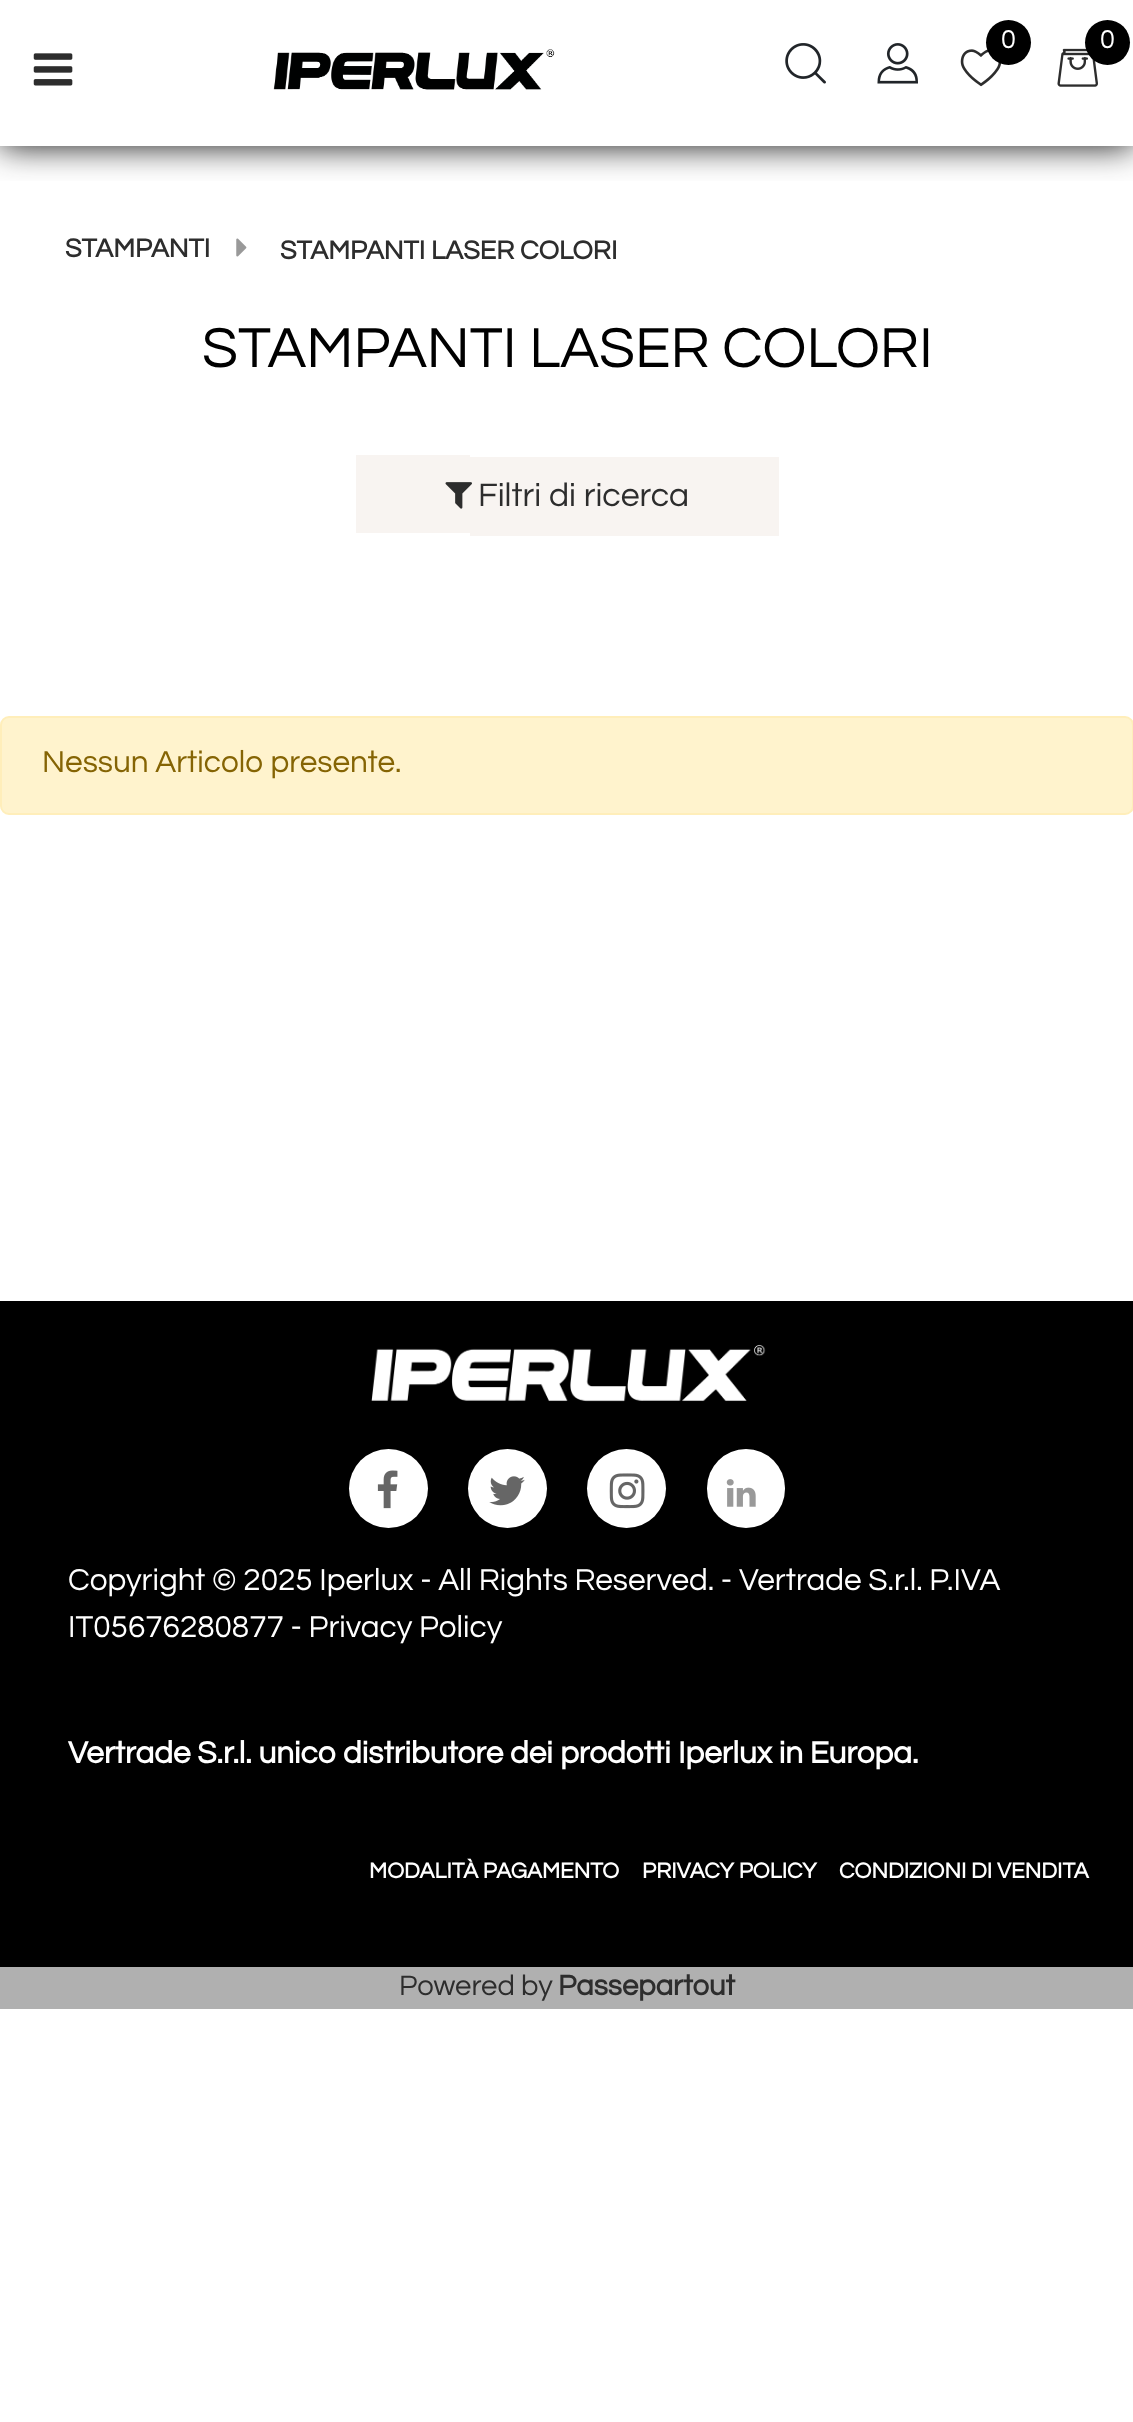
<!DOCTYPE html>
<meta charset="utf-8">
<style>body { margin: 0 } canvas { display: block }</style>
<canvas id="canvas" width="1133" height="2422"></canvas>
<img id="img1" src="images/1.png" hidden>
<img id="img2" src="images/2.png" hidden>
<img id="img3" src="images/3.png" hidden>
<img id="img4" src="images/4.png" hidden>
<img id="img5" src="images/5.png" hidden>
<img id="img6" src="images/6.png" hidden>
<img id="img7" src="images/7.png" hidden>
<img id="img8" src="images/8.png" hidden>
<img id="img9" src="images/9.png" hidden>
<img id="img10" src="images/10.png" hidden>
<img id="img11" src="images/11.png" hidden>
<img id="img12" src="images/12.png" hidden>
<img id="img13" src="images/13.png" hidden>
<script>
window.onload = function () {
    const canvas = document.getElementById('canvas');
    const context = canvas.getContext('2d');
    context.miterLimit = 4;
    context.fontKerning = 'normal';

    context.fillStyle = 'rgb(255, 255, 255)';
    context.fillRect(0, 0, 1133, 2422);
    context.save();
    context.beginPath();
    context.rect(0, 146, 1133, 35);
    context.clip();
    context.fillStyle = 'rgb(18, 18, 18)';
    context.filter = 'blur(17px)';
    context.beginPath();
    context.rect(0, 0, 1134, 146);
    context.fill();
    context.filter = 'none';
    context.restore();
    context.drawImage(document.getElementById('img1'), 960, 49, 42, 38);
    context.fillStyle = 'rgb(0, 0, 0)';
    context.beginPath();
    context.arc(1008.5, 42.5, 22.5, 0, 2 * Math.PI);
    context.fill();
    context.drawImage(document.getElementById('img2'), 1057, 48, 41, 39);
    context.beginPath();
    context.arc(1107.5, 42.5, 22.5, 0, 2 * Math.PI);
    context.fill();
    context.drawImage(document.getElementById('img3'), 785, 43, 41, 41);
    context.drawImage(document.getElementById('img4'), 877, 43, 41, 41);
    context.drawImage(document.getElementById('img5'), 33, 53, 40, 33);
    context.drawImage(document.getElementById('img6'), 273, 49, 282, 41);
    context.drawImage(document.getElementById('img7'), 236, 238, 11, 19);
    context.fillStyle = 'rgb(248, 244, 241)';
    context.fillRect(356, 455, 114, 78);
    context.fillRect(470, 457, 309, 79);
    context.drawImage(document.getElementById('img8'), 445, 482, 27, 27);
    context.fillStyle = 'rgb(255, 243, 205)';
    context.beginPath();
    context.roundRect(1, 717, 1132, 97, 8);
    context.fill();
    context.strokeStyle = 'rgb(255, 238, 186)';
    context.lineWidth = 2;
    context.stroke();
    context.fillStyle = 'rgb(0, 0, 0)';
    context.fillRect(0, 1301, 1133, 666);
    context.drawImage(document.getElementById('img9'), 371, 1344, 395, 58);
    context.fillStyle = 'rgb(255, 255, 255)';
    context.beginPath();
    context.arc(388.5, 1488.5, 39.5, 0, 2 * Math.PI);
    context.fill();
    context.drawImage(document.getElementById('img10'), 377, 1470, 21, 39);
    context.beginPath();
    context.arc(507.5, 1488.5, 39.5, 0, 2 * Math.PI);
    context.fill();
    context.drawImage(document.getElementById('img11'), 489, 1476, 36, 30);
    context.beginPath();
    context.arc(626.5, 1488.5, 39.5, 0, 2 * Math.PI);
    context.fill();
    context.drawImage(document.getElementById('img12'), 609, 1473, 36, 36);
    context.beginPath();
    context.roundRect(707, 1449, 78, 79, 39);
    context.fill();
    context.drawImage(document.getElementById('img13'), 726, 1479, 30, 28);
    context.fillStyle = 'rgb(176, 176, 176)';
    context.fillRect(0, 1967, 1133, 42);
    context.font = '27px Questrial';
    context.fillStyle = 'rgb(255, 255, 255)';
    context.fillText('0', 1001, 48);
    context.fillText('0', 1100, 48);
    context.font = 'bold 27px Questrial';
    context.fillStyle = 'rgb(45, 45, 45)';
    context.fillText('STAMPANTI', 65, 257);
    context.fillText('STAMPANTI LASER COLORI', 280, 259);
    context.font = '58.5px Questrial';
    context.fillStyle = 'rgb(0, 0, 0)';
    context.fillText('STAMPANTI LASER COLORI', 202, 367);
    context.font = '33.75px Questrial';
    context.fillStyle = 'rgb(45, 45, 45)';
    context.fillText('Filtri di ricerca', 478, 506);
    context.font = '31.5px Questrial';
    context.fillStyle = 'rgb(133, 100, 4)';
    context.fillText('Nessun Articolo presente.', 42, 772);
    context.fillStyle = 'rgb(255, 255, 255)';
    context.fillText('Copyright © 2025 Iperlux - All Rights Reserved. - Vertrade S.r.l. P.IVA', 68, 1590);
    context.fillText('IT05676280877 - Privacy Policy', 68, 1637);
    context.font = 'bold 31.5px Questrial';
    context.fillText('Vertrade S.r.l. unico distributore dei prodotti Iperlux in Europa.', 68, 1763);
    context.font = 'bold 22.5px Questrial';
    context.fillText('MODALITÀ PAGAMENTO', 369, 1878);
    context.fillText('PRIVACY POLICY', 642, 1878);
    context.fillText('CONDIZIONI DI VENDITA', 839, 1878);
    context.font = '29.25px Questrial';
    context.fillStyle = 'rgb(45, 45, 45)';
    context.fillText('Powered by', 399, 1995);
    context.font = 'bold 29.25px Questrial';
    context.fillText('Passepartout', 558, 1995);
};
</script>
